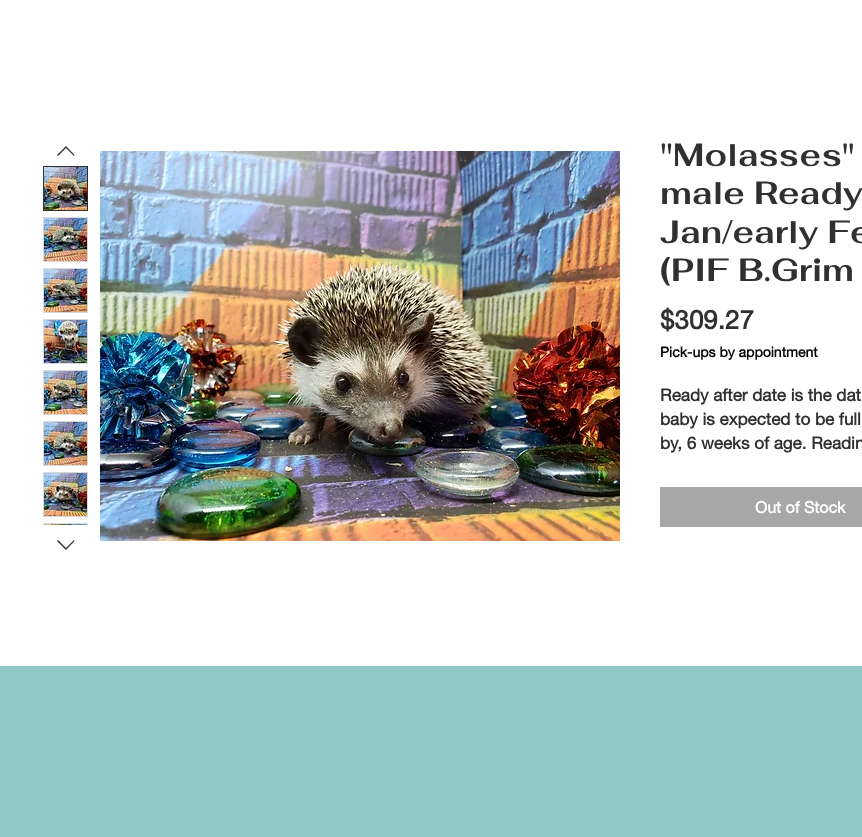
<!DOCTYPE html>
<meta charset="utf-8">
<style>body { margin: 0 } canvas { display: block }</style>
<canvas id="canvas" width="862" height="837"></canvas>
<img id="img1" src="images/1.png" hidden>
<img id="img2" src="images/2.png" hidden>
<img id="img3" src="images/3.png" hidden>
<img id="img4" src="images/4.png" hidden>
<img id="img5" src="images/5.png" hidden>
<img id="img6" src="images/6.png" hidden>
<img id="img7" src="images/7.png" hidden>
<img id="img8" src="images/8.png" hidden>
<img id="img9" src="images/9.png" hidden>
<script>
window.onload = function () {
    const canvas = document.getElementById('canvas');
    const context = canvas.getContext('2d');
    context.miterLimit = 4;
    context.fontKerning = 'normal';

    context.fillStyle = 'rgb(145, 201, 198)';
    context.fillRect(0, 0, 862, 837);
    context.fillStyle = 'rgb(255, 255, 255)';
    context.fillRect(0, 0, 862, 666);
    context.fillStyle = 'rgb(48, 48, 48)';
    context.beginPath();
    context.moveTo(66, 146);
    context.lineTo(74.5, 155);
    context.lineTo(74, 156);
    context.lineTo(66, 148);
    context.lineTo(58, 156);
    context.lineTo(57, 155);
    context.closePath();
    context.fill('evenodd');
    context.strokeStyle = 'rgb(48, 48, 48)';
    context.strokeRect(43.5, 166.5, 44, 44);
    context.drawImage(document.getElementById('img1'), 44, 167, 43, 43);
    context.strokeStyle = 'rgb(216, 216, 216)';
    context.strokeRect(43.5, 217.5, 44, 44);
    context.drawImage(document.getElementById('img2'), 44, 218, 43, 43);
    context.strokeRect(43.5, 268.5, 44, 44);
    context.drawImage(document.getElementById('img3'), 44, 269, 43, 43);
    context.strokeRect(43.5, 319.5, 44, 44);
    context.drawImage(document.getElementById('img4'), 44, 320, 43, 43);
    context.strokeRect(43.5, 370.5, 44, 44);
    context.drawImage(document.getElementById('img5'), 44, 371, 43, 43);
    context.strokeRect(43.5, 421.5, 44, 44);
    context.drawImage(document.getElementById('img6'), 44, 422, 43, 43);
    context.strokeRect(43.5, 472.5, 44, 44);
    context.drawImage(document.getElementById('img7'), 44, 473, 43, 43);
    context.beginPath();
    context.moveTo(74, 540);
    context.lineTo(74.5, 541);
    context.lineTo(66, 550);
    context.lineTo(57, 541);
    context.lineTo(58, 540);
    context.lineTo(66, 548);
    context.closePath();
    context.fill('evenodd');
    context.save();
    context.beginPath();
    context.rect(39, 162, 53, 363);
    context.clip();
    context.strokeRect(43.5, 523.5, 44, 44);
    context.restore();
    context.drawImage(document.getElementById('img8'), 44, 524, 43, 1);
    context.drawImage(document.getElementById('img9'), 100, 151, 520, 390);
    context.fillStyle = 'rgb(168, 167, 167)';
    context.fillRect(660, 487, 202, 40);
    context.font = 'bold 32px Fahkwang';
    context.fillStyle = 'rgb(48, 48, 48)';
    context.fillText('"Molasses"', 660, 166);
    context.fillText('male Ready', 660, 204);
    context.fillText('Jan/early Fe', 660, 243);
    context.fillText('(PIF B.Grim', 660, 281);
    context.font = 'bold 26px helvetica neue';
    context.fillText('$309.27', 660, 329);
    context.font = 'bold 14px helvetica neue';
    context.fillStyle = 'rgb(0, 0, 0)';
    context.fillText('Pick-ups by appointment', 660, 357);
    context.font = 'bold 17px helvetica neue';
    context.fillStyle = 'rgb(48, 48, 48)';
    context.fillText('Ready after date is the dat', 660, 401);
    context.fillText('baby is expected to be full', 660, 425);
    context.fillText('by, 6 weeks of age. Readin', 660, 449);
    context.font = 'bold 16px helvetica neue';
    context.fillStyle = 'rgb(255, 255, 255)';
    context.fillText('Out of Stock', 755, 513);
};
</script>
